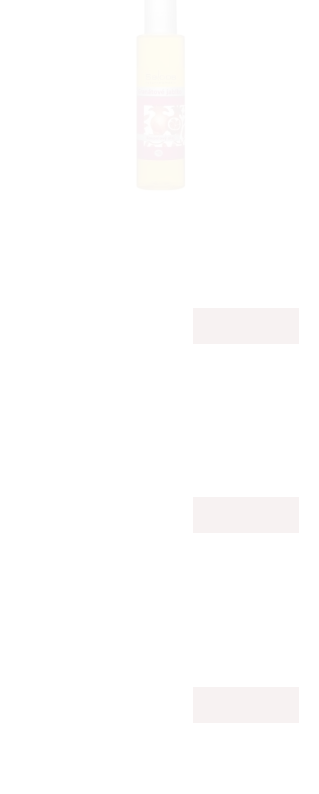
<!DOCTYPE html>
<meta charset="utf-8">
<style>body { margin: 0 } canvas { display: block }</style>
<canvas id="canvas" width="319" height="794"></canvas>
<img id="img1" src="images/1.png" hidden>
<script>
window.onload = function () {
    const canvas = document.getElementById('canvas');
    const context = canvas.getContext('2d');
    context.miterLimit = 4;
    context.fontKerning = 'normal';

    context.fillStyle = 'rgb(255, 255, 255)';
    context.fillRect(0, 0, 319, 794);
    context.drawImage(document.getElementById('img1'), 134, 0, 55, 195);
    context.fillStyle = 'rgb(247, 242, 242)';
    context.fillRect(193, 308, 106, 36);
    context.fillRect(193, 497, 106, 36);
    context.fillRect(193, 687, 106, 36);
};
</script>
